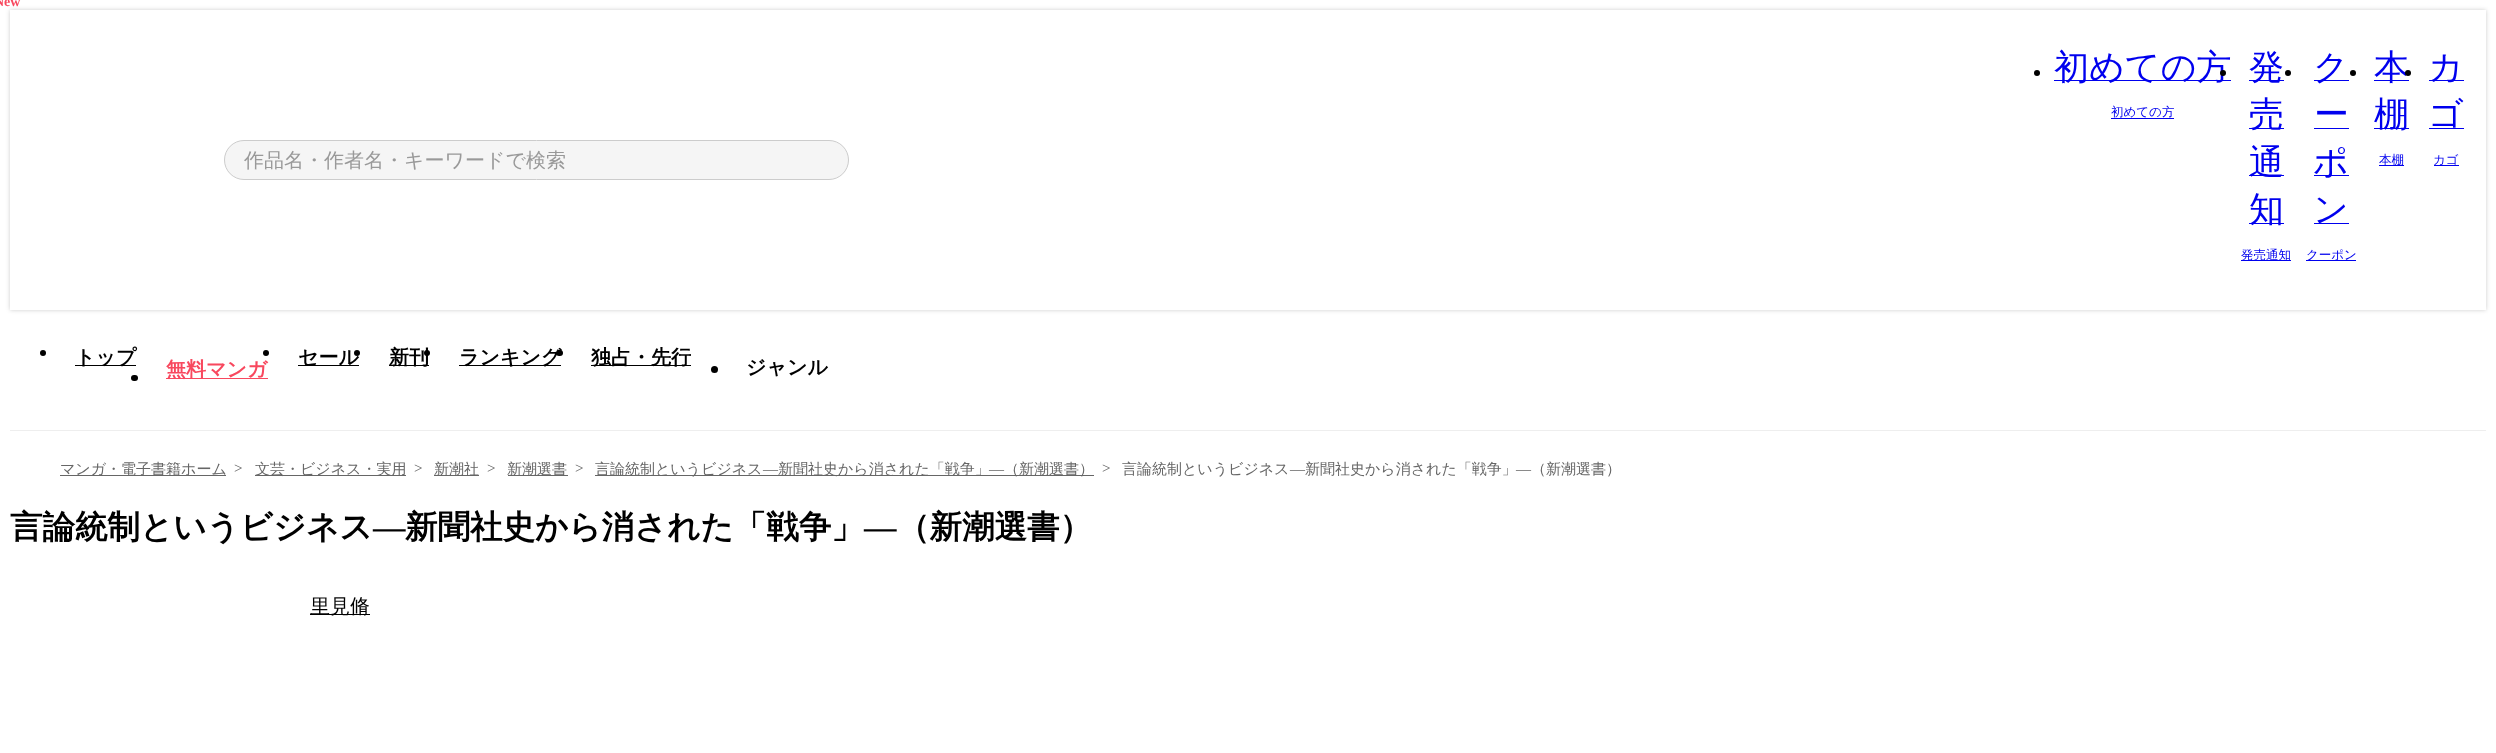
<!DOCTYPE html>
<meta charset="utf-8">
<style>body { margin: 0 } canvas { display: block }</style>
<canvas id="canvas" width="2496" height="753"></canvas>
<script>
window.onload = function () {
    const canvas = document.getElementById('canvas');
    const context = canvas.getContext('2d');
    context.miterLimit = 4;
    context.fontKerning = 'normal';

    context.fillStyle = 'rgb(255, 255, 255)';
    context.fillRect(0, 0, 2496, 753);
    context.fillStyle = 'rgb(238, 238, 238)';
    context.fillRect(10, 430, 2476, 1);
    context.fillStyle = 'rgb(248, 72, 94)';
    context.fillRect(166, 378, 102, 1);
    context.fillStyle = 'rgb(0, 0, 0)';
    context.beginPath();
    context.roundRect(131, 375, 7, 6, 3);
    context.fill();
    context.beginPath();
    context.arc(43, 353, 3, 0, 2 * Math.PI);
    context.fill();
    context.fillRect(75, 365, 61, 1);
    context.beginPath();
    context.arc(266, 353, 3, 0, 2 * Math.PI);
    context.fill();
    context.fillRect(298, 365, 61, 1);
    context.beginPath();
    context.arc(357, 353, 3, 0, 2 * Math.PI);
    context.fill();
    context.fillRect(389, 365, 40, 1);
    context.beginPath();
    context.arc(427, 353, 3, 0, 2 * Math.PI);
    context.fill();
    context.fillRect(459, 365, 102, 1);
    context.beginPath();
    context.roundRect(556, 350, 7, 6, 3);
    context.fill();
    context.fillRect(591, 365, 100, 1);
    context.beginPath();
    context.arc(714.5, 369.5, 3.5, 0, 2 * Math.PI);
    context.fill();
    context.save();
    context.beginPath();
    context.moveTo(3, 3);
    context.lineTo(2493, 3);
    context.lineTo(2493, 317);
    context.lineTo(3, 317);
    context.closePath();
    context.moveTo(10, 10);
    context.lineTo(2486, 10);
    context.lineTo(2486, 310);
    context.lineTo(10, 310);
    context.closePath();
    context.clip('evenodd');
    context.fillStyle = 'rgba(0, 0, 0, 0.2)';
    context.filter = 'blur(2px)';
    context.beginPath();
    context.rect(10, 10, 2476, 300);
    context.fill();
    context.filter = 'none';
    context.restore();
    context.fillStyle = 'rgb(245, 245, 245)';
    context.beginPath();
    context.roundRect(224.5, 140.5, 624, 39, 19.5);
    context.fill();
    context.strokeStyle = 'rgb(204, 204, 204)';
    context.stroke();
    context.fillStyle = 'rgb(0, 0, 0)';
    context.beginPath();
    context.arc(2037, 73, 3, 0, 2 * Math.PI);
    context.fill();
    context.fillStyle = 'rgb(0, 0, 238)';
    context.fillRect(2054, 80, 177, 1);
    context.fillRect(2111, 118, 63, 1);
    context.fillRect(2249, 80, 35, 1);
    context.fillRect(2249, 128, 35, 1);
    context.fillRect(2249, 175, 35, 1);
    context.fillRect(2249, 223, 35, 1);
    context.fillRect(2241, 260, 50, 1);
    context.fillStyle = 'rgb(0, 0, 0)';
    context.beginPath();
    context.arc(2288, 73, 3, 0, 2 * Math.PI);
    context.fill();
    context.fillStyle = 'rgb(0, 0, 238)';
    context.fillRect(2314, 80, 35, 1);
    context.fillRect(2314, 128, 35, 1);
    context.fillRect(2314, 175, 35, 1);
    context.fillRect(2314, 223, 35, 1);
    context.fillRect(2306, 260, 50, 1);
    context.fillStyle = 'rgb(0, 0, 0)';
    context.beginPath();
    context.arc(2353, 73, 3, 0, 2 * Math.PI);
    context.fill();
    context.fillStyle = 'rgb(0, 0, 238)';
    context.fillRect(2374, 80, 35, 1);
    context.fillRect(2374, 128, 35, 1);
    context.fillRect(2379, 165, 25, 1);
    context.fillRect(2429, 80, 35, 1);
    context.fillRect(2429, 128, 35, 1);
    context.fillRect(2434, 165, 25, 1);
    context.fillStyle = 'rgb(102, 102, 102)';
    context.fillRect(60, 475, 166, 1);
    context.fillRect(255, 475, 151, 1);
    context.fillRect(434, 475, 45, 1);
    context.fillRect(508, 475, 60, 1);
    context.fillRect(595, 475, 499, 1);
    context.fillStyle = 'rgb(0, 0, 0)';
    context.fillRect(310, 614, 60, 1);
    context.font = 'bold 14px Liberation Serif';
    context.fillStyle = 'rgb(248, 72, 94)';
    context.fillText('New', -6, 6);
    context.font = 'bold 20px WenQuanYi Zen Hei';
    context.fillText('無料マンガ', 166, 376);
    context.fillStyle = 'rgb(0, 0, 0)';
    context.fillText('トップ', 75, 364);
    context.fillText('セール', 298, 364);
    context.fillText('新刊', 389, 364);
    context.fillText('ランキング', 459, 364);
    context.fillText('独占・先行', 591, 364);
    context.fillText('ジャンル', 746, 374);
    context.font = '500 20px WenQuanYi Zen Hei';
    context.fillStyle = 'rgb(153, 153, 153)';
    context.fillText('作品名・作者名・キーワードで検索', 244, 167);
    context.font = '500 35px WenQuanYi Zen Hei';
    context.fillStyle = 'rgb(0, 0, 238)';
    context.fillText('初めての方', 2054, 79);
    context.font = '500 12.5px WenQuanYi Zen Hei';
    context.fillText('初めての方', 2111, 116);
    context.fillStyle = 'rgb(0, 0, 0)';
    context.beginPath();
    context.arc(2223, 73, 3, 0, 2 * Math.PI);
    context.fill();
    context.font = '500 35px WenQuanYi Zen Hei';
    context.fillStyle = 'rgb(0, 0, 238)';
    context.fillText('発', 2249, 79);
    context.fillText('売', 2249, 126);
    context.fillText('通', 2249, 174);
    context.fillText('知', 2249, 221);
    context.font = '500 12.5px WenQuanYi Zen Hei';
    context.fillText('発売通知', 2241, 259);
    context.font = '500 35px WenQuanYi Zen Hei';
    context.fillText('ク', 2313, 79);
    context.fillText('ー', 2314, 126);
    context.fillText('ポ', 2313, 174);
    context.fillText('ン', 2313, 221);
    context.font = '500 12.5px WenQuanYi Zen Hei';
    context.fillText('クーポン', 2306, 259);
    context.font = '500 35px WenQuanYi Zen Hei';
    context.fillText('本', 2374, 79);
    context.fillText('棚', 2374, 126);
    context.font = '500 12.5px WenQuanYi Zen Hei';
    context.fillText('本棚', 2379, 164);
    context.fillStyle = 'rgb(0, 0, 0)';
    context.beginPath();
    context.arc(2408, 73, 3, 0, 2 * Math.PI);
    context.fill();
    context.font = '500 35px WenQuanYi Zen Hei';
    context.fillStyle = 'rgb(0, 0, 238)';
    context.fillText('カ', 2428, 79);
    context.fillText('ゴ', 2428, 126);
    context.font = '500 12.5px WenQuanYi Zen Hei';
    context.fillText('カゴ', 2433, 164);
    context.font = '500 15px WenQuanYi Zen Hei';
    context.fillStyle = 'rgb(102, 102, 102)';
    context.fillText('マンガ・電子書籍ホーム', 60, 474);
    context.font = '15px Liberation Serif';
    context.fillText('>', 234, 473);
    context.font = '500 15px WenQuanYi Zen Hei';
    context.fillText('文芸・ビジネス・実用', 255, 474);
    context.font = '15px Liberation Serif';
    context.fillText('>', 414, 473);
    context.font = '500 15px WenQuanYi Zen Hei';
    context.fillText('新潮社', 434, 474);
    context.font = '15px Liberation Serif';
    context.fillText('>', 487, 473);
    context.font = '500 15px WenQuanYi Zen Hei';
    context.fillText('新潮選書', 507, 474);
    context.font = '15px Liberation Serif';
    context.fillText('>', 575, 473);
    context.font = '500 15px WenQuanYi Zen Hei';
    context.fillText('言論統制というビジネス', 595, 474);
    context.font = '15px Liberation Serif';
    context.fillText('―', 763, 474);
    context.font = '500 15px WenQuanYi Zen Hei';
    context.fillText('新聞社史から消された「戦争」', 778, 474);
    context.font = '15px Liberation Serif';
    context.fillText('―', 989, 474);
    context.font = '500 15px WenQuanYi Zen Hei';
    context.fillText('（新潮選書）', 1004, 474);
    context.font = '15px Liberation Serif';
    context.fillText('>', 1102, 473);
    context.font = '500 15px WenQuanYi Zen Hei';
    context.fillText('言論統制というビジネス', 1122, 474);
    context.font = '15px Liberation Serif';
    context.fillText('―', 1290, 474);
    context.font = '500 15px WenQuanYi Zen Hei';
    context.fillText('新聞社史から消された「戦争」', 1305, 474);
    context.font = '15px Liberation Serif';
    context.fillText('―', 1516, 474);
    context.font = '500 15px WenQuanYi Zen Hei';
    context.fillText('（新潮選書）', 1531, 474);
    context.font = 'bold 32.5px WenQuanYi Zen Hei';
    context.fillStyle = 'rgb(0, 0, 0)';
    context.fillText('言論統制というビジネス', 10, 538);
    context.font = 'bold 32.5px Liberation Serif';
    context.fillText('―', 373, 538);
    context.font = 'bold 32.5px WenQuanYi Zen Hei';
    context.fillText('新聞社史から消された「戦争」', 405, 538);
    context.font = 'bold 32.5px Liberation Serif';
    context.fillText('―', 864, 538);
    context.font = 'bold 32.5px WenQuanYi Zen Hei';
    context.fillText('（新潮選書）', 897, 538);
    context.font = '500 20px WenQuanYi Zen Hei';
    context.fillText('里見脩', 310, 613);
};
</script>
